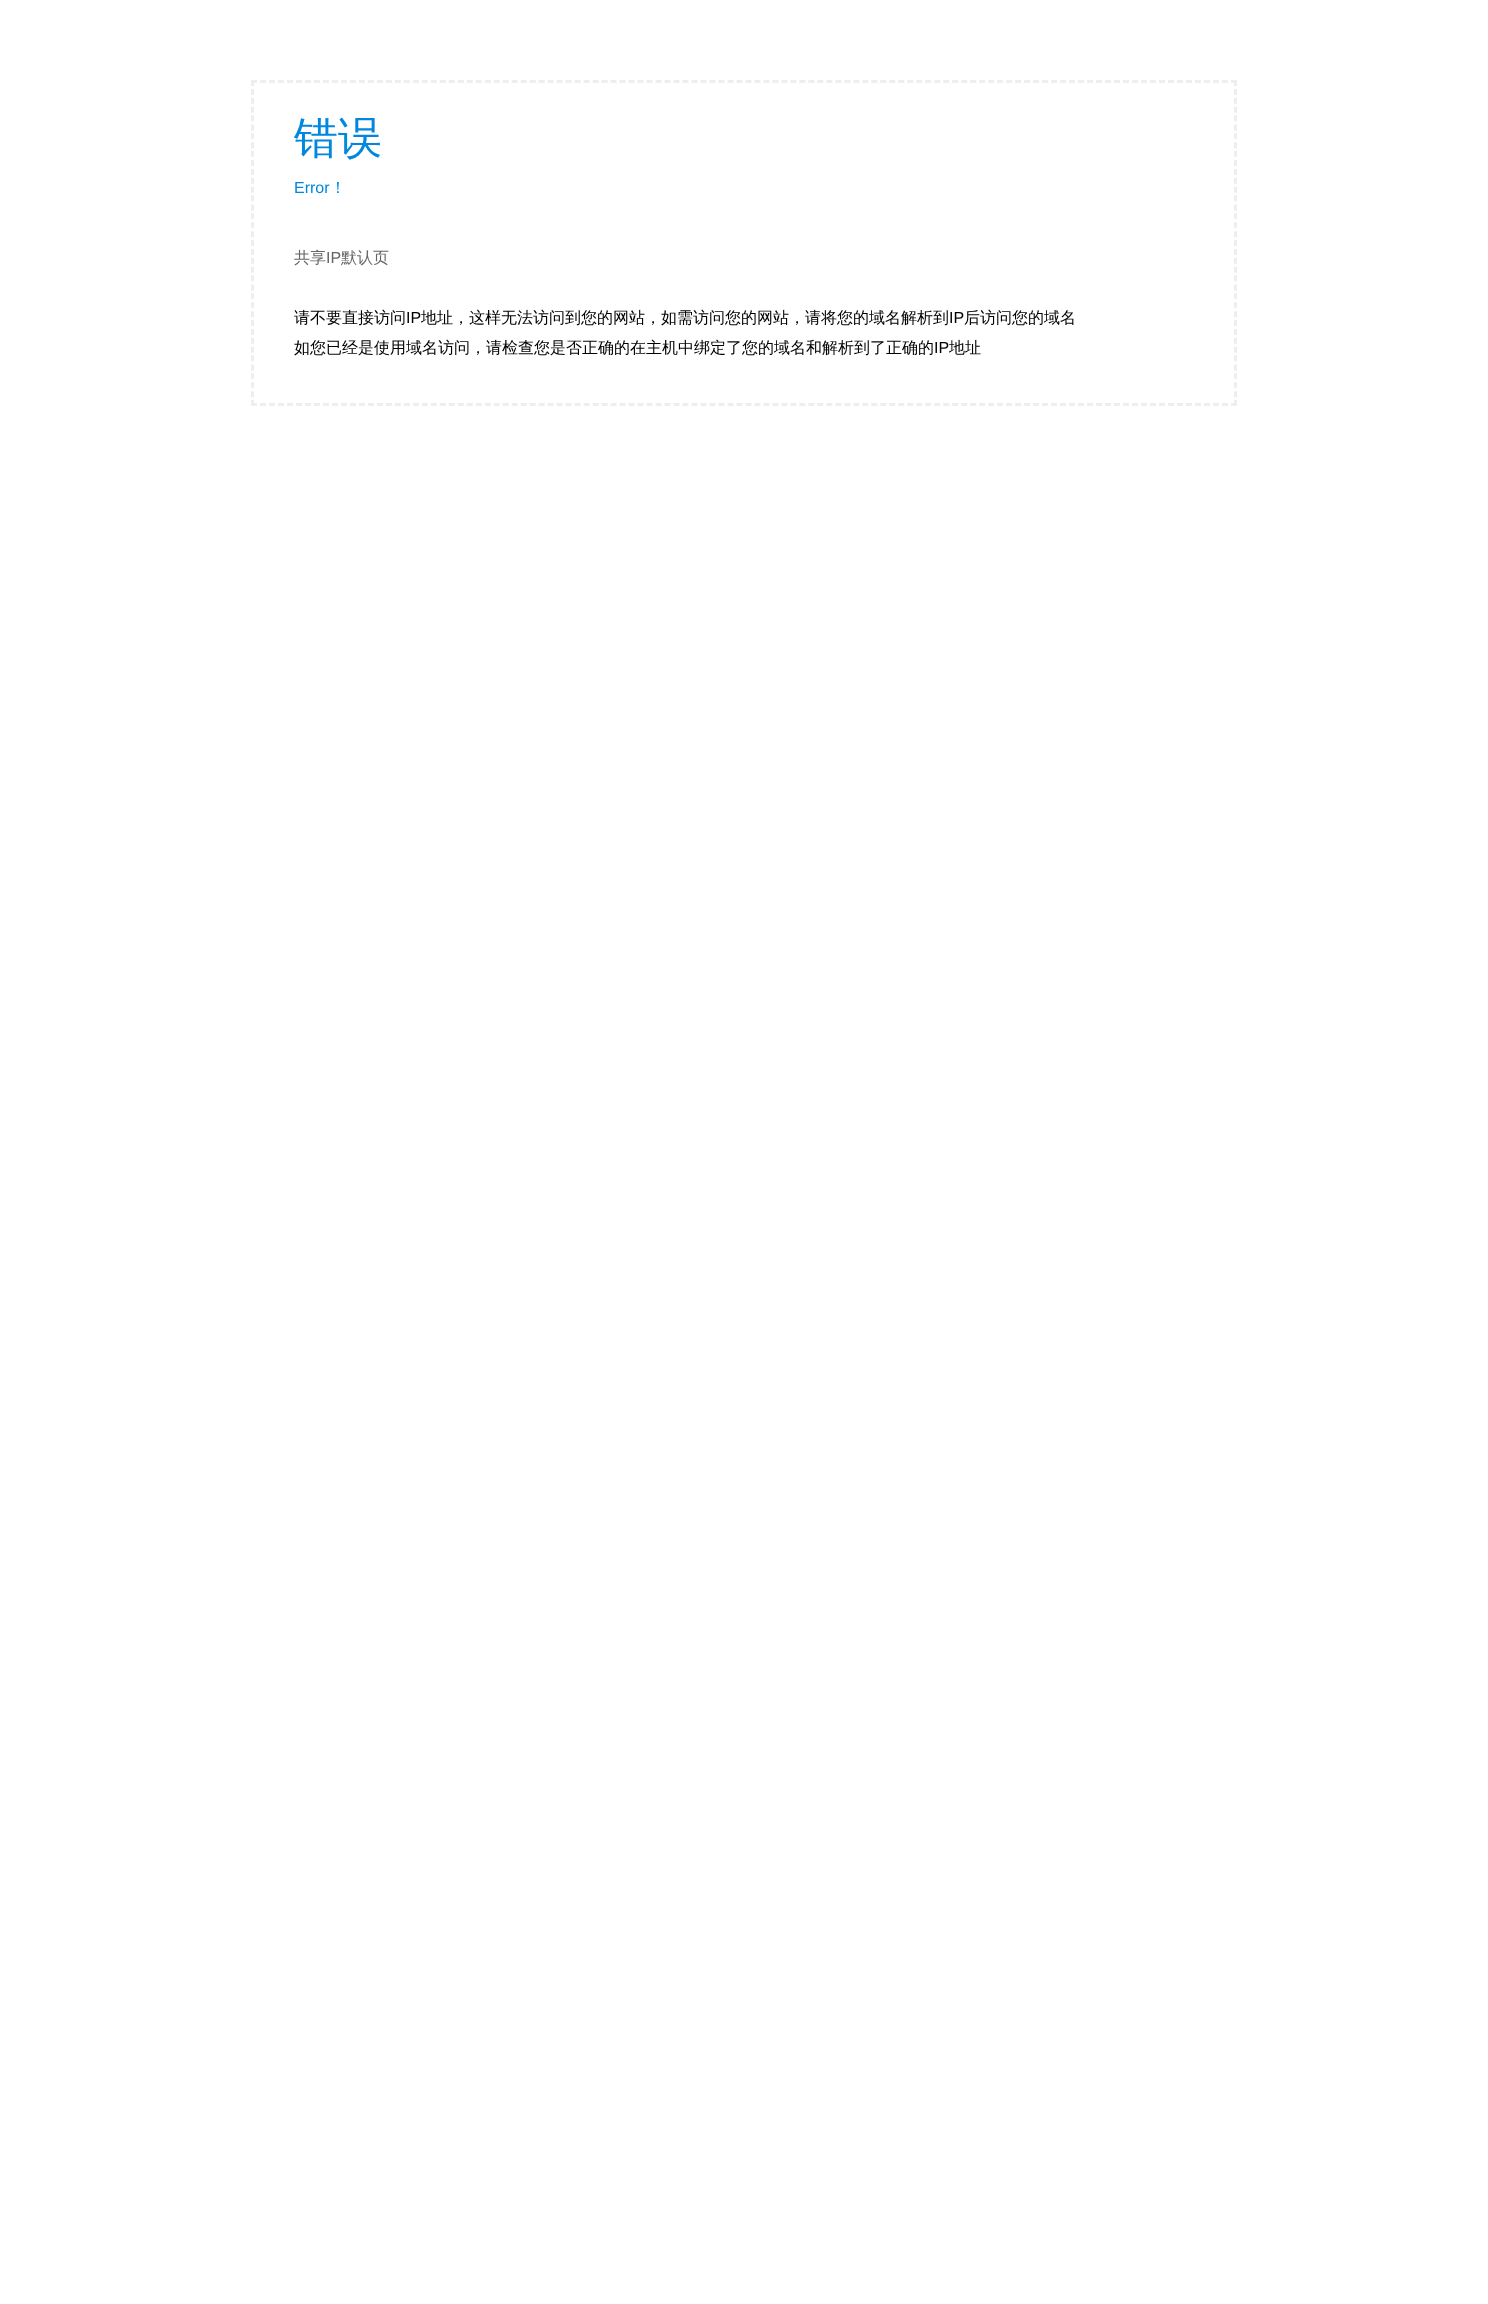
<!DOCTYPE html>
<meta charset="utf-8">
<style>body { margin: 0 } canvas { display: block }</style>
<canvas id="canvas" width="1488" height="2304"></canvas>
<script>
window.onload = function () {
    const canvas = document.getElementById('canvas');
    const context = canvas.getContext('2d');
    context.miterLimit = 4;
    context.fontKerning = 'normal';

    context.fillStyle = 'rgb(255, 255, 255)';
    context.fillRect(0, 0, 1488, 2304);
    context.beginPath();
    context.moveTo(251, 81.5);
    context.lineTo(1237, 81.5);
    context.strokeStyle = 'rgb(238, 238, 238)';
    context.lineWidth = 3;
    context.setLineDash([6, 2.99]);
    context.stroke();
    context.beginPath();
    context.moveTo(1235.5, 80);
    context.lineTo(1235.5, 406);
    context.setLineDash([6, 2.89]);
    context.stroke();
    context.beginPath();
    context.moveTo(251, 404.5);
    context.lineTo(1237, 404.5);
    context.setLineDash([6, 2.99]);
    context.stroke();
    context.beginPath();
    context.moveTo(252.5, 80);
    context.lineTo(252.5, 406);
    context.setLineDash([6, 2.89]);
    context.stroke();
    context.font = '500 44px WenQuanYi Zen Hei';
    context.fillStyle = 'rgb(1, 136, 222)';
    context.fillText('错误', 294, 153);
    context.font = '16px Liberation Sans';
    context.fillText('Error', 294, 193);
    context.font = '500 16px WenQuanYi Zen Hei';
    context.fillText('！', 330, 193);
    context.fillStyle = 'rgb(102, 102, 102)';
    context.fillText('共享', 294, 263);
    context.font = '16px Liberation Sans';
    context.fillText('IP', 326, 263);
    context.font = '500 16px WenQuanYi Zen Hei';
    context.fillText('默认页', 341, 263);
    context.fillStyle = 'rgb(0, 0, 0)';
    context.fillText('请不要直接访问', 294, 323);
    context.font = '16px Liberation Sans';
    context.fillText('IP', 406, 323);
    context.font = '500 16px WenQuanYi Zen Hei';
    context.fillText('地址，这样无法访问到您的网站，如需访问您的网站，请将您的域名解析到', 421, 323);
    context.font = '16px Liberation Sans';
    context.fillText('IP', 949, 323);
    context.font = '500 16px WenQuanYi Zen Hei';
    context.fillText('后访问您的域名', 964, 323);
    context.fillText('如您已经是使用域名访问，请检查您是否正确的在主机中绑定了您的域名和解析到了正确的', 294, 353);
    context.font = '16px Liberation Sans';
    context.fillText('IP', 934, 353);
    context.font = '500 16px WenQuanYi Zen Hei';
    context.fillText('地址', 949, 353);
};
</script>
